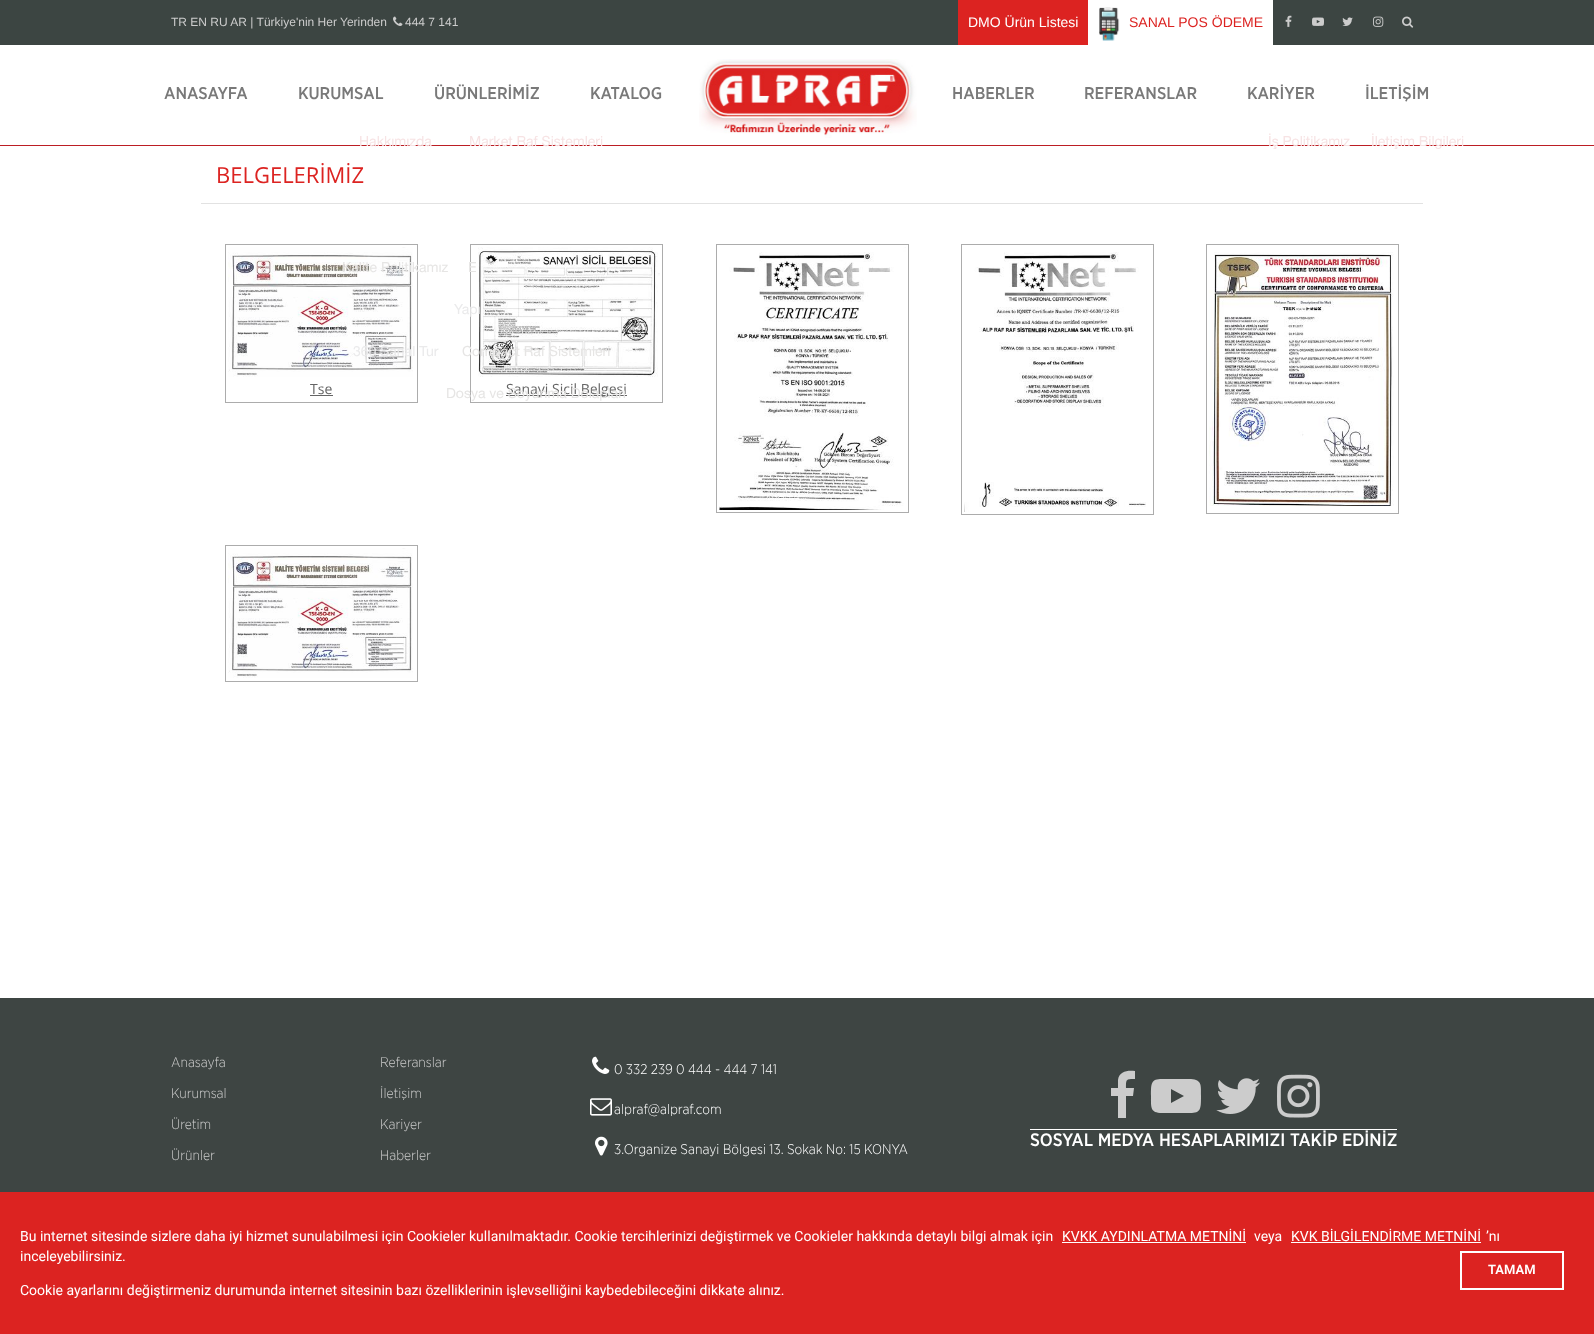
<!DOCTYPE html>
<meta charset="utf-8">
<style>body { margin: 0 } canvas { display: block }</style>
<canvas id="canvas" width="1594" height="1334"></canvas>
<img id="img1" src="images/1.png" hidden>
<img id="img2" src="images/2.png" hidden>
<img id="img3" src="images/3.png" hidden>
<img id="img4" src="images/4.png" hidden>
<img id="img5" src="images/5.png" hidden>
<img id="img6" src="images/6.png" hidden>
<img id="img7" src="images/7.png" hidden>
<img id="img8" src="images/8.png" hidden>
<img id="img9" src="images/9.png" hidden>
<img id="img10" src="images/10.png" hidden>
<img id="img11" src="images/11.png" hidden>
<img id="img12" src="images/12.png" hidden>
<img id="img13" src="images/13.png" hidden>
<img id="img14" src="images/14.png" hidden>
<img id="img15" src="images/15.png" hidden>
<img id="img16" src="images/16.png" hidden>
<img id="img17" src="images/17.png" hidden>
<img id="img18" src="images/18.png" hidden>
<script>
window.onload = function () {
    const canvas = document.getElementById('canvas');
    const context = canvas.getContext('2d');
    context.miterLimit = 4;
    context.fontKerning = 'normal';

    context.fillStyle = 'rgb(255, 255, 255)';
    context.fillRect(0, 0, 1594, 1334);
    context.fillStyle = 'rgb(60, 69, 66)';
    context.fillRect(0, 0, 1594, 45);
    context.drawImage(document.getElementById('img1'), 393, 16, 10, 10);
    context.fillStyle = 'rgb(220, 35, 33)';
    context.fillRect(958, 0, 130, 45);
    context.fillStyle = 'rgb(255, 255, 255)';
    context.fillRect(1088, 0, 185, 45);
    context.drawImage(document.getElementById('img2'), 1099, 7, 21, 34);
    context.drawImage(document.getElementById('img3'), 1285, 15, 7, 12);
    context.drawImage(document.getElementById('img4'), 1312, 17, 12, 9);
    context.drawImage(document.getElementById('img5'), 1342, 17, 11, 9);
    context.drawImage(document.getElementById('img6'), 1373, 16, 11, 11);
    context.drawImage(document.getElementById('img7'), 1402, 16, 12, 12);
    context.fillStyle = 'rgb(188, 30, 36)';
    context.fillRect(0, 145, 1594, 1);
    context.drawImage(document.getElementById('img8'), 699, 59, 218, 79);
    context.fillStyle = 'rgb(226, 226, 226)';
    context.fillRect(201, 203, 1222, 1);
    context.strokeStyle = 'rgb(172, 172, 172)';
    context.strokeRect(225.5, 244.5, 192, 158);
    context.drawImage(document.getElementById('img9'), 228, 247, 185, 130);
    context.fillStyle = 'rgb(101, 101, 101)';
    context.fillRect(310, 395, 23, 1);
    context.strokeRect(470.5, 244.5, 192, 158);
    context.drawImage(document.getElementById('img10'), 478, 247, 182, 130);
    context.fillRect(506, 395, 121, 1);
    context.strokeRect(716.5, 244.5, 192, 268);
    context.drawImage(document.getElementById('img11'), 719, 247, 187, 263);
    context.strokeRect(961.5, 244.5, 192, 270);
    context.drawImage(document.getElementById('img12'), 964, 252, 182, 260);
    context.strokeRect(1206.5, 244.5, 192, 269);
    context.drawImage(document.getElementById('img13'), 1209, 252, 185, 254);
    context.strokeRect(225.5, 545.5, 192, 136);
    context.drawImage(document.getElementById('img9'), 228, 548, 185, 130);
    context.fillStyle = 'rgb(62, 69, 67)';
    context.fillRect(0, 998, 1594, 194);
    context.drawImage(document.getElementById('img14'), 592, 1056, 18, 18);
    context.drawImage(document.getElementById('img15'), 590, 1098, 22, 18);
    context.drawImage(document.getElementById('img16'), 595, 1136, 13, 20);
    context.fillStyle = 'rgb(204, 204, 204)';
    context.beginPath();
    context.moveTo(1135, 1071);
    context.lineTo(1135, 1079);
    context.bezierCurveTo(1126, 1079, 1126, 1079, 1126, 1088);
    context.lineTo(1134, 1088);
    context.lineTo(1133, 1096);
    context.lineTo(1126, 1096);
    context.lineTo(1126, 1118);
    context.lineTo(1118, 1118);
    context.lineTo(1118, 1096);
    context.lineTo(1111, 1096);
    context.lineTo(1111, 1088);
    context.lineTo(1118, 1088);
    context.lineTo(1118, 1080);
    context.bezierCurveTo(1119, 1071, 1128, 1070, 1135, 1071);
    context.closePath();
    context.fill();
    context.beginPath();
    context.moveTo(1171, 1103);
    context.lineTo(1184, 1096);
    context.lineTo(1171, 1089);
    context.closePath();
    context.moveTo(1176, 1079);
    context.lineTo(1191, 1079);
    context.bezierCurveTo(1202, 1080, 1201, 1085, 1201, 1096);
    context.bezierCurveTo(1201, 1109, 1201, 1113, 1190, 1113);
    context.lineTo(1162, 1113);
    context.bezierCurveTo(1150, 1113, 1151, 1107, 1151, 1096);
    context.bezierCurveTo(1151, 1083, 1151, 1079, 1162, 1079);
    context.closePath();
    context.fill();
    context.drawImage(document.getElementById('img17'), 1216, 1078, 44, 36);
    context.drawImage(document.getElementById('img18'), 1277, 1074, 43, 44);
    context.fillStyle = 'rgb(255, 255, 255)';
    context.fillRect(1030, 1129, 367, 1);
    context.fillStyle = 'rgb(220, 35, 33)';
    context.fillRect(0, 1192, 1594, 142);
    context.fillStyle = 'rgb(255, 255, 255)';
    context.fillRect(1062, 1242, 184, 1);
    context.fillRect(1291, 1242, 190, 1);
    context.strokeStyle = 'rgb(255, 255, 255)';
    context.lineWidth = 2;
    context.strokeRect(1461, 1252, 102, 37);
    context.font = '12px Liberation Sans';
    context.fillStyle = 'rgb(204, 204, 204)';
    context.fillText('TR EN RU AR | Türkiye\'nin Her Yerinden', 171, 26);
    context.fillText('444 7 141', 405, 26);
    context.font = '14px Liberation Sans';
    context.fillStyle = 'rgb(255, 255, 255)';
    context.fillText('DMO Ürün Listesi', 968, 27);
    context.fillStyle = 'rgb(220, 35, 33)';
    context.fillText('SANAL POS ÖDEME', 1129, 27);
    context.font = '500 17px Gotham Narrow';
    context.fillStyle = 'rgb(121, 121, 121)';
    context.fillText('ANASAYFA', 164, 99);
    context.fillText('KURUMSAL', 298, 99);
    context.font = '14px Helvetica Neue';
    context.fillStyle = 'rgb(247, 227, 228)';
    context.fillText('Hakkımızda', 359, 146);
    context.fillStyle = 'rgb(230, 229, 228)';
    context.fillText('Kalite Politikamız', 342, 272);
    context.fillStyle = 'rgb(234, 234, 235)';
    context.fillText('360 Sanal Tur', 353, 356);
    context.font = '500 17px Gotham Narrow';
    context.fillStyle = 'rgb(121, 121, 121)';
    context.fillText('ÜRÜNLERİMİZ', 434, 99);
    context.font = '14px Helvetica Neue';
    context.fillStyle = 'rgb(247, 227, 228)';
    context.fillText('Market Raf Sistemleri', 469, 146);
    context.fillStyle = 'rgb(230, 229, 228)';
    context.fillText('E', 468, 272);
    context.fillStyle = 'rgb(234, 234, 235)';
    context.fillText('Yapı', 454, 314);
    context.fillStyle = 'rgb(230, 229, 228)';
    context.fillText('Compact Raf Sistemleri', 462, 356);
    context.font = '500 17px Gotham Narrow';
    context.fillStyle = 'rgb(121, 121, 121)';
    context.fillText('KARİYER', 1247, 99);
    context.font = '14px Helvetica Neue';
    context.fillStyle = 'rgb(247, 227, 228)';
    context.fillText('İş Politikamız', 1268, 146);
    context.font = '500 17px Gotham Narrow';
    context.fillStyle = 'rgb(121, 121, 121)';
    context.fillText('İLETİŞİM', 1365, 99);
    context.font = '14px Helvetica Neue';
    context.fillStyle = 'rgb(247, 227, 228)';
    context.fillText('İletişim Bilgileri', 1371, 146);
    context.font = '500 17px Gotham Narrow';
    context.fillStyle = 'rgb(121, 121, 121)';
    context.fillText('KATALOG', 590, 99);
    context.fillText('HABERLER', 952, 99);
    context.fillText('REFERANSLAR', 1084, 99);
    context.font = '22px Open Sans';
    context.fillStyle = 'rgb(220, 35, 33)';
    context.fillText('BELGELERİMİZ', 216, 183);
    context.font = '14px Open Sans';
    context.fillStyle = 'rgb(101, 101, 101)';
    context.fillText('Tse', 310, 394);
    context.fillText('Sanayi Sicil Belgesi', 506, 394);
    context.font = '14px Helvetica Neue';
    context.fillStyle = 'rgb(230, 229, 228)';
    context.fillText('Dosya ve Soyunma Dolapları', 446, 398);
    context.font = '300 14px Gotham Narrow';
    context.fillStyle = 'rgb(204, 204, 204)';
    context.fillText('Anasayfa', 171, 1067);
    context.fillText('Referanslar', 380, 1067);
    context.fillText('Kurumsal', 171, 1098);
    context.fillText('İletişim', 380, 1098);
    context.fillText('Üretim', 171, 1129);
    context.fillText('Kariyer', 380, 1129);
    context.fillText('Ürünler', 171, 1160);
    context.fillText('Haberler', 380, 1160);
    context.fillStyle = 'rgb(255, 255, 255)';
    context.fillText('0 332 239 0 444 - 444 7 141', 614, 1074);
    context.fillText('alpraf@alpraf.com', 614, 1114);
    context.fillText('3.Organize Sanayi Bölgesi 13. Sokak No: 15 KONYA', 614, 1154);
    context.font = '500 18px Gotham Narrow';
    context.fillText('SOSYAL MEDYA HESAPLARIMIZI TAKİP EDİNİZ', 1030, 1146);
    context.font = '14px Roboto';
    context.fillText('Bu internet sitesinde sizlere daha iyi hizmet sunulabilmesi için Cookieler kullanılmaktadır. Cookie tercihlerinizi değiştirmek ve Cookieler hakkında detaylı bilgi almak için', 20, 1241);
    context.fillText('KVKK AYDINLATMA METNİNİ', 1062, 1241);
    context.fillText('veya', 1254, 1241);
    context.fillText('KVK BİLGİLENDİRME METNİNİ', 1291, 1241);
    context.fillText('’nı', 1486, 1241);
    context.fillText('inceleyebilirsiniz.', 20, 1261);
    context.fillText('Cookie ayarlarını değiştirmeniz durumunda internet sitesinin bazı özelliklerinin işlevselliğini kaybedebileceğini dikkate alınız.', 20, 1295);
    context.font = '600 13px Roboto';
    context.fillText('TAMAM', 1488, 1274);
};
</script>
